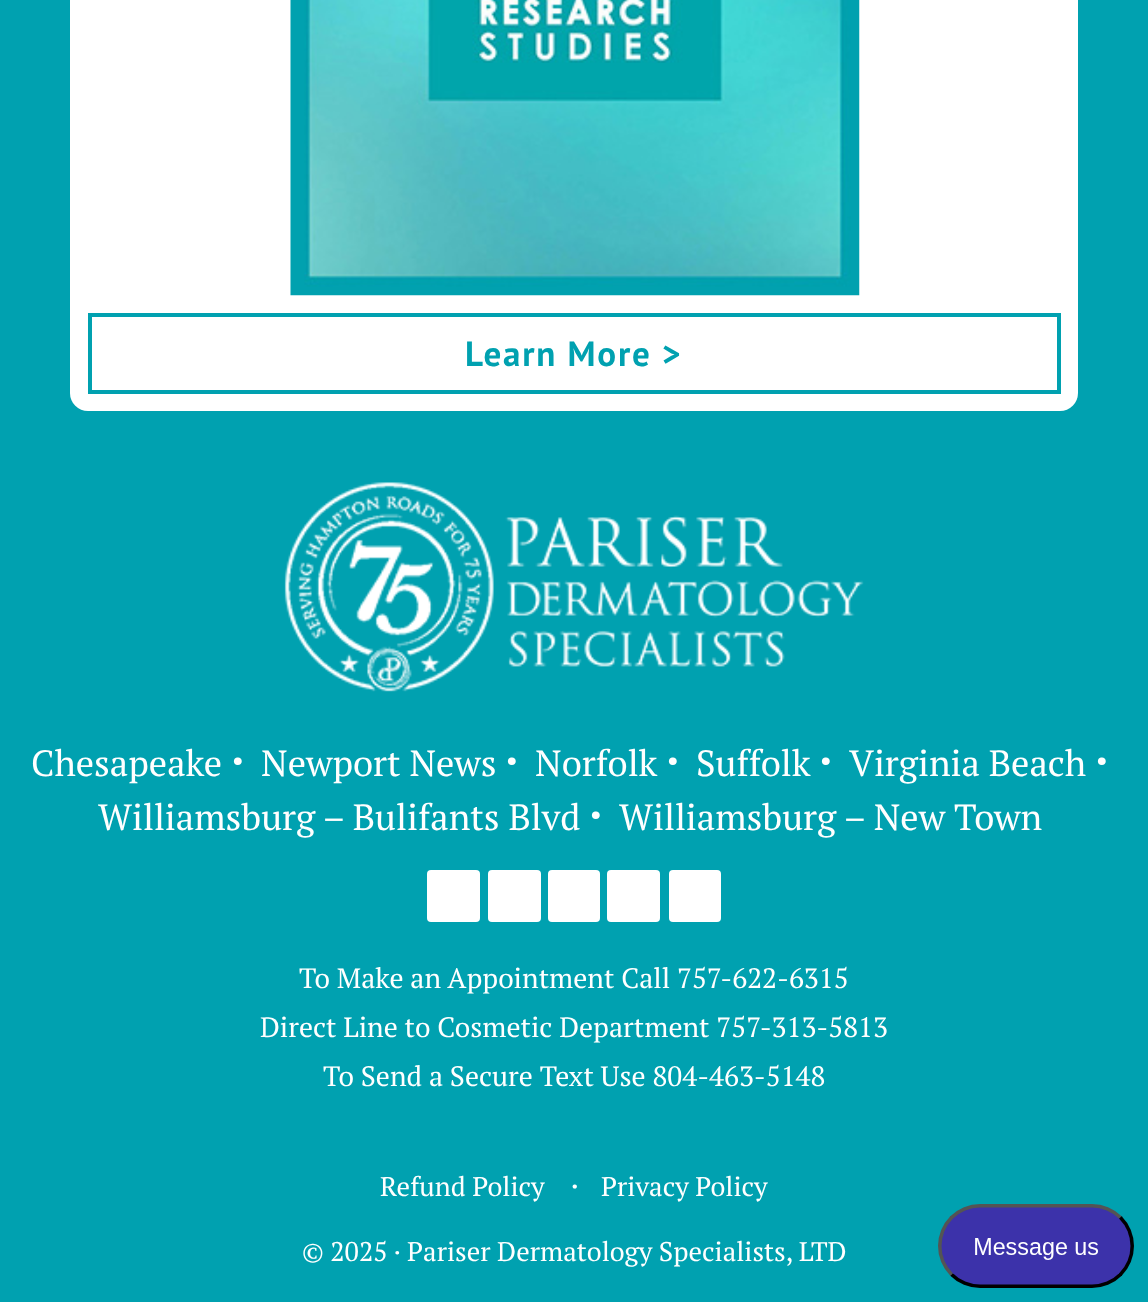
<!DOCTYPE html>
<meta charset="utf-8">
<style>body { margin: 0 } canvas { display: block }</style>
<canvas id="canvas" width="1148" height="1302"></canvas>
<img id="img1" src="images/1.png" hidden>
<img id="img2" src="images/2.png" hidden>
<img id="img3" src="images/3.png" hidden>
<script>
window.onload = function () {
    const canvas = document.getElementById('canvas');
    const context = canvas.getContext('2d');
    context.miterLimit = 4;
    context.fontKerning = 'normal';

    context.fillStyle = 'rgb(0, 161, 176)';
    context.fillRect(0, 0, 1148, 1302);
    context.fillStyle = 'rgb(255, 255, 255)';
    context.beginPath();
    context.roundRect(70, -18, 1008, 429, 18);
    context.fill();
    context.drawImage(document.getElementById('img1'), 290, 0, 570, 296);
    context.strokeStyle = 'rgb(0, 161, 176)';
    context.lineWidth = 4;
    context.strokeRect(90, 315, 969, 77);
    context.drawImage(document.getElementById('img2'), 284, 482, 580, 210);
    context.beginPath();
    context.roundRect(427, 870, 53, 52, 4);
    context.fill();
    context.beginPath();
    context.roundRect(488, 870, 53, 52, 4);
    context.fill();
    context.beginPath();
    context.roundRect(548, 870, 52, 52, 4);
    context.fill();
    context.beginPath();
    context.roundRect(607, 870, 53, 52, 4);
    context.fill();
    context.beginPath();
    context.roundRect(669, 870, 52, 52, 4);
    context.fill();
    context.drawImage(document.getElementById('img3'), 938, 1204, 196, 84);
    context.letterSpacing = '1.75px';
    context.font = 'bold 35px PT Sans';
    context.fillStyle = 'rgb(0, 161, 176)';
    context.fillText('Learn More >', 465, 366);
    context.letterSpacing = '0px';
    context.font = '36.4px PT Serif';
    context.fillStyle = 'rgb(255, 255, 255)';
    context.fillText('Chesapeake', 31, 776);
    context.font = 'bold 46px PT Serif';
    context.fillText('·', 231, 776);
    context.font = '36.4px PT Serif';
    context.fillText('Newport News', 261, 776);
    context.font = 'bold 46px PT Serif';
    context.fillText('·', 505, 776);
    context.font = '36.4px PT Serif';
    context.fillText('Norfolk', 535, 776);
    context.font = 'bold 46px PT Serif';
    context.fillText('·', 666, 776);
    context.font = '36.4px PT Serif';
    context.fillText('Suffolk', 696, 776);
    context.font = 'bold 46px PT Serif';
    context.fillText('·', 819, 776);
    context.font = '36.4px PT Serif';
    context.fillText('Virginia Beach', 849, 776);
    context.font = 'bold 46px PT Serif';
    context.fillText('·', 1095, 776);
    context.font = '36.4px PT Serif';
    context.fillText('Williamsburg – Bulifants Blvd', 98, 830);
    context.font = 'bold 46px PT Serif';
    context.fillText('·', 589, 830);
    context.font = '36.4px PT Serif';
    context.fillText('Williamsburg – New Town', 619, 830);
    context.font = '28px PT Serif';
    context.fillText('To Make an Appointment Call 757-622-6315', 299, 988);
    context.fillText('Direct Line to Cosmetic Department 757-313-5813', 260, 1037);
    context.fillText('To Send a Secure Text Use 804-463-5148', 323, 1086);
    context.font = '26.9px PT Serif';
    context.fillText('Refund Policy', 380, 1196);
    context.font = '31px PT Serif';
    context.fillText('·', 571, 1196);
    context.font = '26.9px PT Serif';
    context.fillText('Privacy Policy', 601, 1196);
    context.fillText('© 2025 · Pariser Dermatology Specialists, LTD', 302, 1261);
};
</script>
